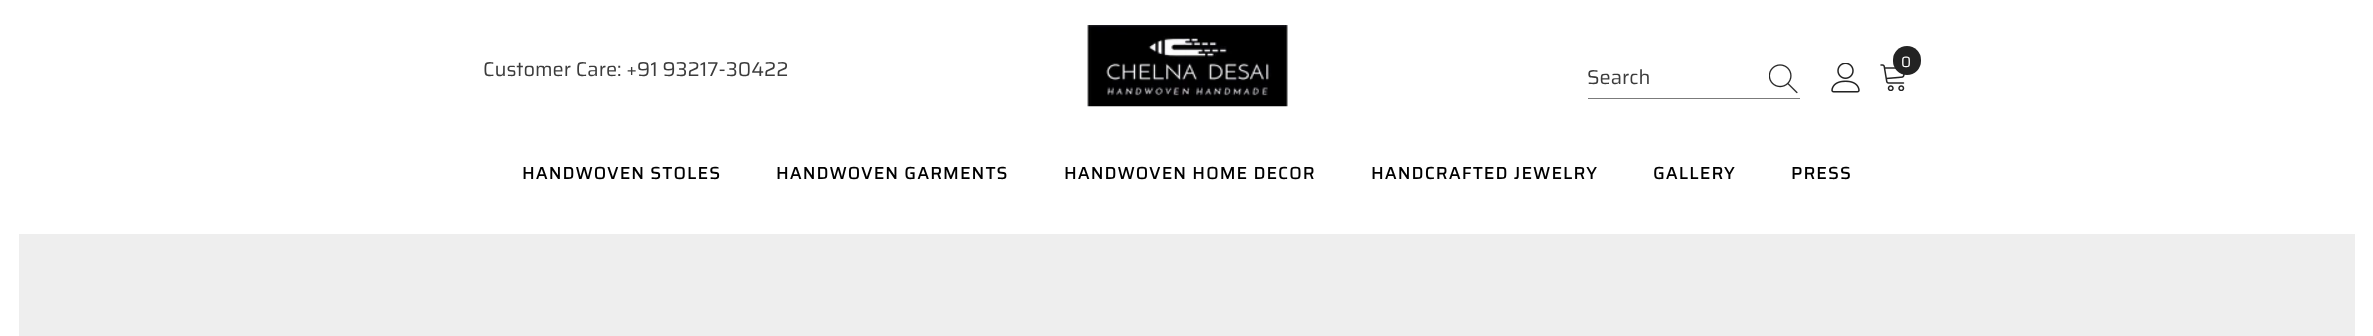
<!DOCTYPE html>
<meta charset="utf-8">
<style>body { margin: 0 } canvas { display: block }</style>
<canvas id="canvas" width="2373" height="336"></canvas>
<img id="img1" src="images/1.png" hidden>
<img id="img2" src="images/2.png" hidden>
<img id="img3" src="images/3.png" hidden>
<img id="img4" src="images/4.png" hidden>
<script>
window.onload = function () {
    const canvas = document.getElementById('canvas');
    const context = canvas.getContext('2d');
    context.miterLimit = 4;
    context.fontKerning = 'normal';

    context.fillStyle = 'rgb(255, 255, 255)';
    context.fillRect(0, 0, 2373, 336);
    context.drawImage(document.getElementById('img1'), 1087, 25, 201, 82);
    context.drawImage(document.getElementById('img2'), 1831, 63, 29, 30);
    context.drawImage(document.getElementById('img3'), 1880, 64, 25, 27);
    context.fillStyle = 'rgb(35, 35, 35)';
    context.beginPath();
    context.roundRect(1893, 46, 28, 29, 14);
    context.fill();
    context.fillStyle = 'rgb(123, 123, 123)';
    context.fillRect(1588, 98, 212, 1);
    context.drawImage(document.getElementById('img4'), 1769, 64, 29, 30);
    context.fillStyle = 'rgb(238, 238, 238)';
    context.fillRect(19, 234, 2336, 102);
    context.font = '20px Saira';
    context.fillStyle = 'rgb(60, 60, 60)';
    context.fillText('Customer Care: +91 93217-30422', 483, 76);
    context.font = '15px Saira';
    context.fillStyle = 'rgb(255, 255, 255)';
    context.fillText('0', 1901, 67);
    context.font = '20px Saira';
    context.fillStyle = 'rgb(60, 60, 60)';
    context.fillText('Search', 1587, 84);
    context.letterSpacing = '1.05px';
    context.font = '500 17.5px Saira';
    context.fillStyle = 'rgb(0, 0, 0)';
    context.fillText('HANDWOVEN STOLES', 522, 179);
    context.fillText('HANDWOVEN GARMENTS', 776, 179);
    context.fillText('HANDWOVEN HOME DECOR', 1064, 179);
    context.fillText('HANDCRAFTED JEWELRY', 1371, 179);
    context.fillText('GALLERY', 1653, 179);
    context.fillText('PRESS', 1791, 179);
};
</script>
